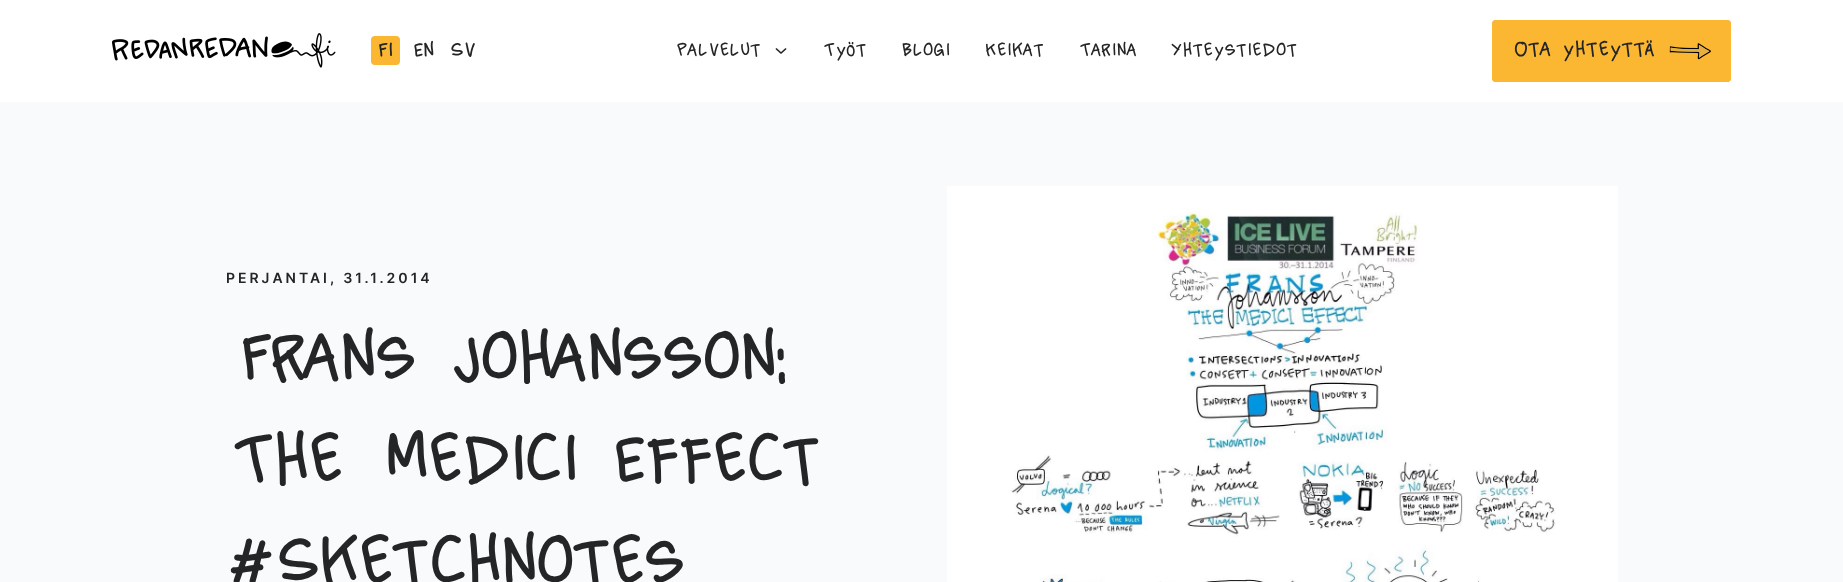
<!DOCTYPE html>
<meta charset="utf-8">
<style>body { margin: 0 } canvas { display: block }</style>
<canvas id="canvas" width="1843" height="582"></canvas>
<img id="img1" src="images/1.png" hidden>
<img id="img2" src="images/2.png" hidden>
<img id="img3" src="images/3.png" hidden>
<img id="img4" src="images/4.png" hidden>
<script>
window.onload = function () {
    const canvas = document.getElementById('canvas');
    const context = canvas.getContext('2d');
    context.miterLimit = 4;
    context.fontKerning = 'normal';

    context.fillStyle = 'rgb(255, 255, 255)';
    context.fillRect(0, 0, 1843, 582);
    context.drawImage(document.getElementById('img1'), 112, 33, 224, 35);
    context.fillStyle = 'rgb(251, 183, 49)';
    context.beginPath();
    context.roundRect(371, 36, 29, 29, 4);
    context.fill();
    context.drawImage(document.getElementById('img2'), 775, 48, 12, 6);
    context.beginPath();
    context.roundRect(1492.5, 20.5, 238, 61, 2.5);
    context.fill();
    context.strokeStyle = 'rgb(251, 183, 49)';
    context.stroke();
    context.drawImage(document.getElementById('img3'), 1669, 43, 42, 17);
    context.fillStyle = 'rgb(249, 250, 251)';
    context.fillRect(0, 102, 1843, 480);
    context.drawImage(document.getElementById('img4'), 947, 186, 671, 396);
    context.font = '500 18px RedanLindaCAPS';
    context.fillStyle = 'rgb(36, 37, 38)';
    context.fillText('Fi', 374, 57);
    context.fillText('En', 411, 57);
    context.fillText('Sv', 448, 57);
    context.letterSpacing = '1px';
    context.font = '500 16px RedanLindaCAPS';
    context.fillText('Palvelut', 673, 56);
    context.fillText('Työt', 822, 56);
    context.fillText('Blogi', 901, 56);
    context.fillText('Keikat', 984, 56);
    context.fillText('Tarina', 1078, 56);
    context.fillText('Yhteystiedot', 1171, 56);
    context.font = '500 18px RedanLindaCAPS';
    context.fillText('Ota yhteyttä', 1512, 56);
    context.letterSpacing = '3px';
    context.font = '600 14px Inter';
    context.fillText('PERJANTAI, 31.1.2014', 226, 283);
    context.letterSpacing = '0px';
    context.font = '500 60px RedanLindaCAPS';
    context.fillText('Frans Johansson:', 226, 381);
    context.fillText('The Medici Effect', 226, 483);
    context.fillText('#Sketchnotes', 226, 585);
};
</script>
